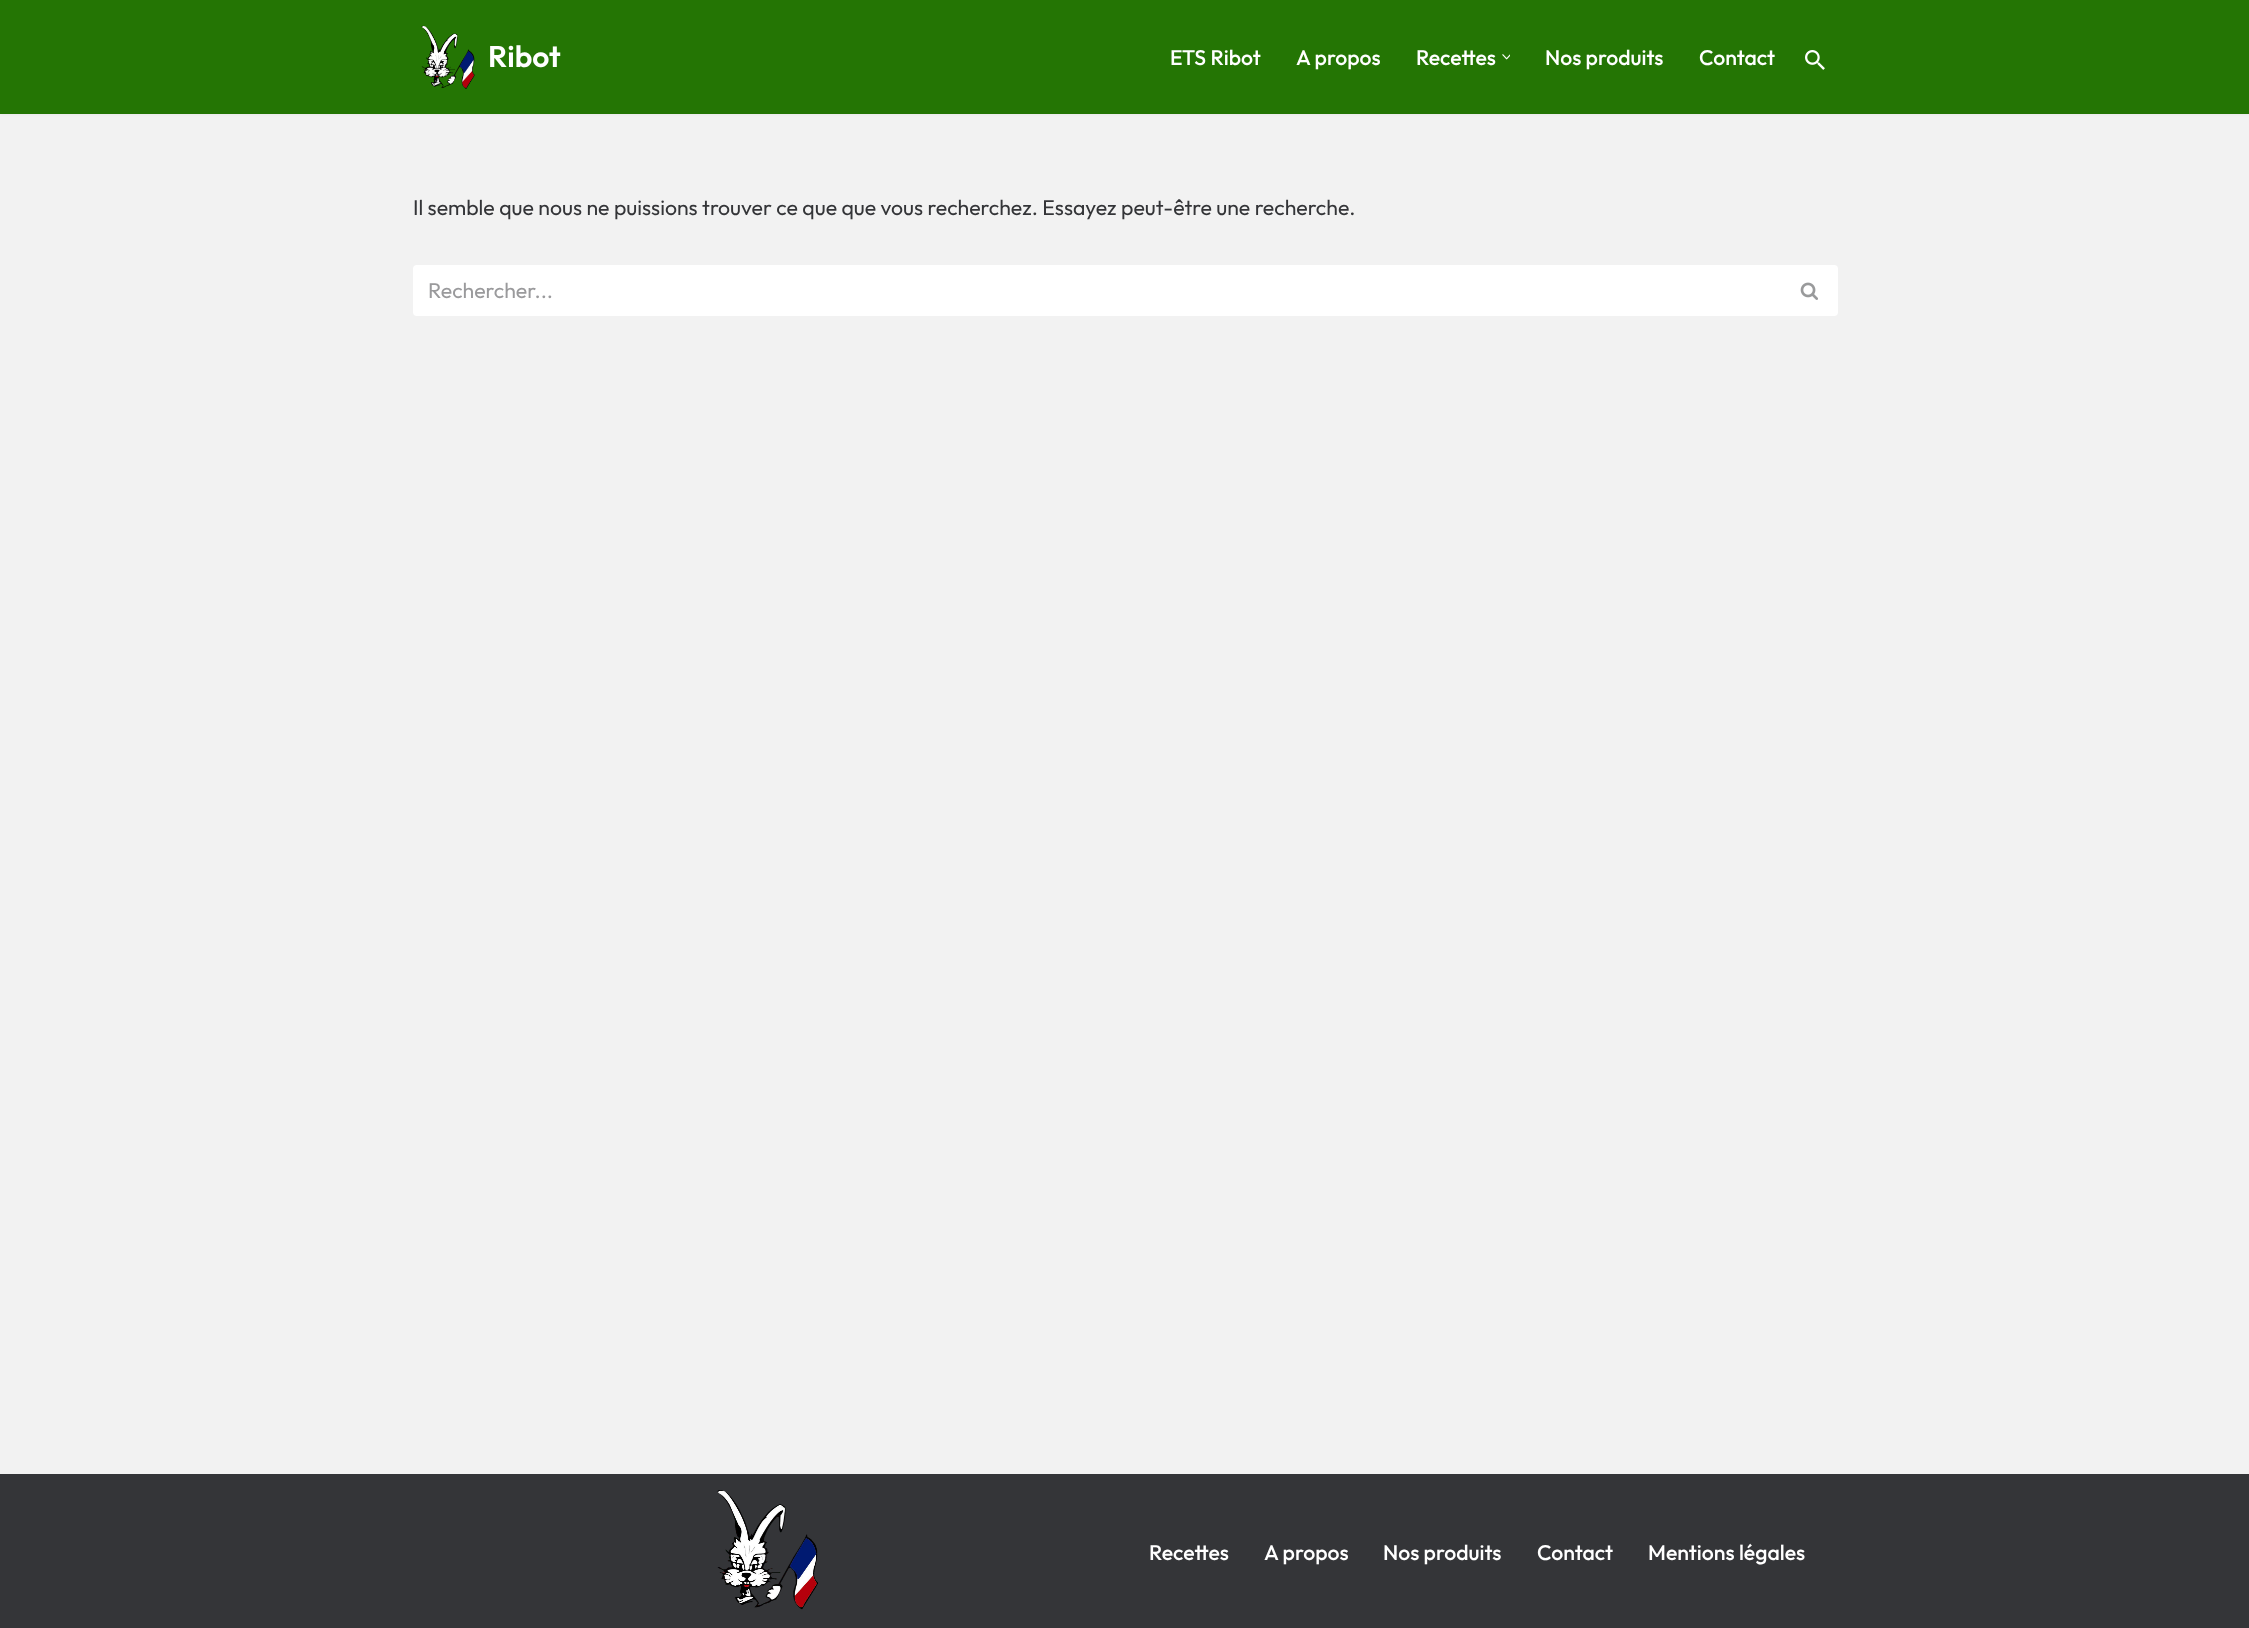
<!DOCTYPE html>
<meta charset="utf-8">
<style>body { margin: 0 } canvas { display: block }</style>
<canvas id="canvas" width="2249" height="1628"></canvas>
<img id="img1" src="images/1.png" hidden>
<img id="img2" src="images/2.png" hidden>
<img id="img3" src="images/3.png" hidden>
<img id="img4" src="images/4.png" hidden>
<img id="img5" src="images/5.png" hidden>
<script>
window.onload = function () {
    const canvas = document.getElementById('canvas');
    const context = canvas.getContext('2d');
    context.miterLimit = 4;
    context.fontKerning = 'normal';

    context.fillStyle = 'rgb(242, 242, 242)';
    context.fillRect(0, 0, 2249, 1628);
    context.fillStyle = 'rgba(0, 0, 0, 0.1)';
    context.filter = 'blur(2px)';
    context.beginPath();
    context.rect(0, -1, 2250, 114);
    context.fill();
    context.filter = 'none';
    context.fillStyle = 'rgb(36, 117, 4)';
    context.fillRect(0, 0, 2249, 114);
    context.drawImage(document.getElementById('img1'), 421, 25, 54, 64);
    context.drawImage(document.getElementById('img2'), 1502, 54, 8, 6);
    context.drawImage(document.getElementById('img3'), 1805, 50, 20, 20);
    context.fillStyle = 'rgb(255, 255, 255)';
    context.beginPath();
    context.roundRect(413, 265, 1368, 51, [4, 0, 0, 4]);
    context.fill();
    context.beginPath();
    context.roundRect(1781, 265, 57, 51, [0, 4, 4, 0]);
    context.fill();
    context.drawImage(document.getElementById('img4'), 1800, 282, 18, 18);
    context.fillStyle = 'rgb(52, 53, 56)';
    context.fillRect(0, 1474, 2249, 154);
    context.drawImage(document.getElementById('img5'), 717, 1490, 101, 120);
    context.font = '600 30px Outfit';
    context.fillStyle = 'rgb(255, 255, 255)';
    context.fillText('Ribot', 488, 67);
    context.font = '500 21.25px Outfit';
    context.fillText('ETS Ribot', 1170, 65);
    context.fillText('A propos', 1296, 65);
    context.fillText('Recettes', 1416, 65);
    context.fillText('Nos produits', 1545, 65);
    context.fillText('Contact', 1699, 65);
    context.font = '21.25px Outfit';
    context.fillStyle = 'rgb(52, 53, 56)';
    context.fillText('Il semble que nous ne puissions trouver ce que que vous recherchez. Essayez peut-être une recherche.', 413, 215);
    context.fillStyle = 'rgb(154, 154, 156)';
    context.fillText('Rechercher...', 428, 298);
    context.font = '500 21.25px Outfit';
    context.fillStyle = 'rgb(255, 255, 255)';
    context.fillText('Recettes', 1149, 1560);
    context.fillText('A propos', 1264, 1560);
    context.fillText('Nos produits', 1383, 1560);
    context.fillText('Contact', 1537, 1560);
    context.fillText('Mentions légales', 1648, 1560);
};
</script>
